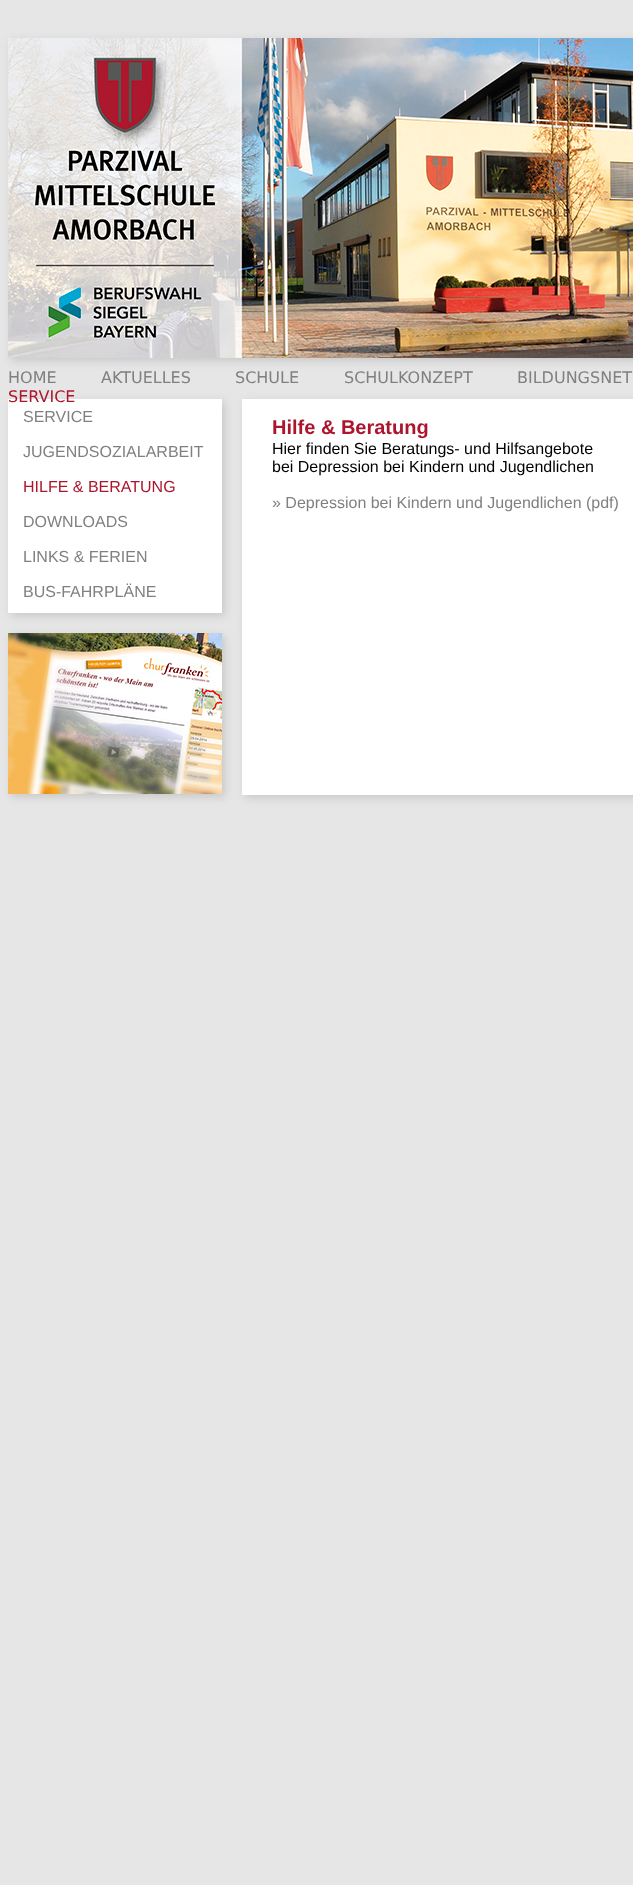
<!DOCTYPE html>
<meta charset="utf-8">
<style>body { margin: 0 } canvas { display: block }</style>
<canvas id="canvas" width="633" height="1885"></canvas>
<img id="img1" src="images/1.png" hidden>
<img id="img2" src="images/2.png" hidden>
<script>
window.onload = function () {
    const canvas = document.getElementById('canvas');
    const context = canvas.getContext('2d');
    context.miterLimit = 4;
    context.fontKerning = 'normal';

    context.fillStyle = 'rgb(230, 230, 230)';
    context.fillRect(0, 0, 633, 1885);
    context.fillStyle = 'rgb(200, 200, 200)';
    context.filter = 'blur(4px)';
    context.beginPath();
    context.rect(11, 41, 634, 320);
    context.fill();
    context.filter = 'none';
    context.drawImage(document.getElementById('img1'), 8, 38, 625, 320);
    context.filter = 'blur(4px)';
    context.beginPath();
    context.rect(11, 402, 214, 214);
    context.fill();
    context.filter = 'none';
    context.fillStyle = 'rgb(255, 255, 255)';
    context.fillRect(8, 399, 214, 214);
    context.fillStyle = 'rgb(200, 200, 200)';
    context.filter = 'blur(4px)';
    context.beginPath();
    context.rect(11, 636, 214, 161);
    context.fill();
    context.filter = 'none';
    context.drawImage(document.getElementById('img2'), 8, 633, 214, 161);
    context.filter = 'blur(4px)';
    context.beginPath();
    context.rect(245, 402, 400, 396);
    context.fill();
    context.filter = 'none';
    context.fillStyle = 'rgb(255, 255, 255)';
    context.fillRect(242, 399, 391, 396);
    context.font = '16px DejaVu Sans';
    context.fillStyle = 'rgb(128, 128, 128)';
    context.fillText('HOME', 8, 383);
    context.fillText('AKTUELLES', 101, 383);
    context.fillText('SCHULE', 235, 383);
    context.fillText('SCHULKONZEPT', 344, 383);
    context.fillText('BILDUNGSNET', 517, 383);
    context.fillStyle = 'rgb(172, 22, 44)';
    context.fillText('SERVICE', 8, 402);
    context.font = '16px Liberation Sans';
    context.fillStyle = 'rgb(128, 128, 128)';
    context.fillText('SERVICE', 23, 422);
    context.fillText('JUGENDSOZIALARBEIT', 23, 457);
    context.fillStyle = 'rgb(172, 22, 44)';
    context.fillText('HILFE & BERATUNG', 23, 492);
    context.fillStyle = 'rgb(128, 128, 128)';
    context.fillText('DOWNLOADS', 23, 527);
    context.fillText('LINKS & FERIEN', 23, 562);
    context.fillText('BUS-FAHRPLÄNE', 23, 597);
    context.font = 'bold 20px Liberation Sans';
    context.fillStyle = 'rgb(172, 22, 44)';
    context.fillText('Hilfe & Beratung', 272, 434);
    context.font = '16px Liberation Sans';
    context.fillStyle = 'rgb(0, 0, 0)';
    context.fillText('Hier finden Sie Beratungs- und Hilfsangebote', 272, 454);
    context.fillText('bei Depression bei Kindern und Jugendlichen', 272, 472);
    context.fillStyle = 'rgb(128, 128, 128)';
    context.fillText('» Depression bei Kindern und Jugendlichen (pdf)', 272, 508);
};
</script>
